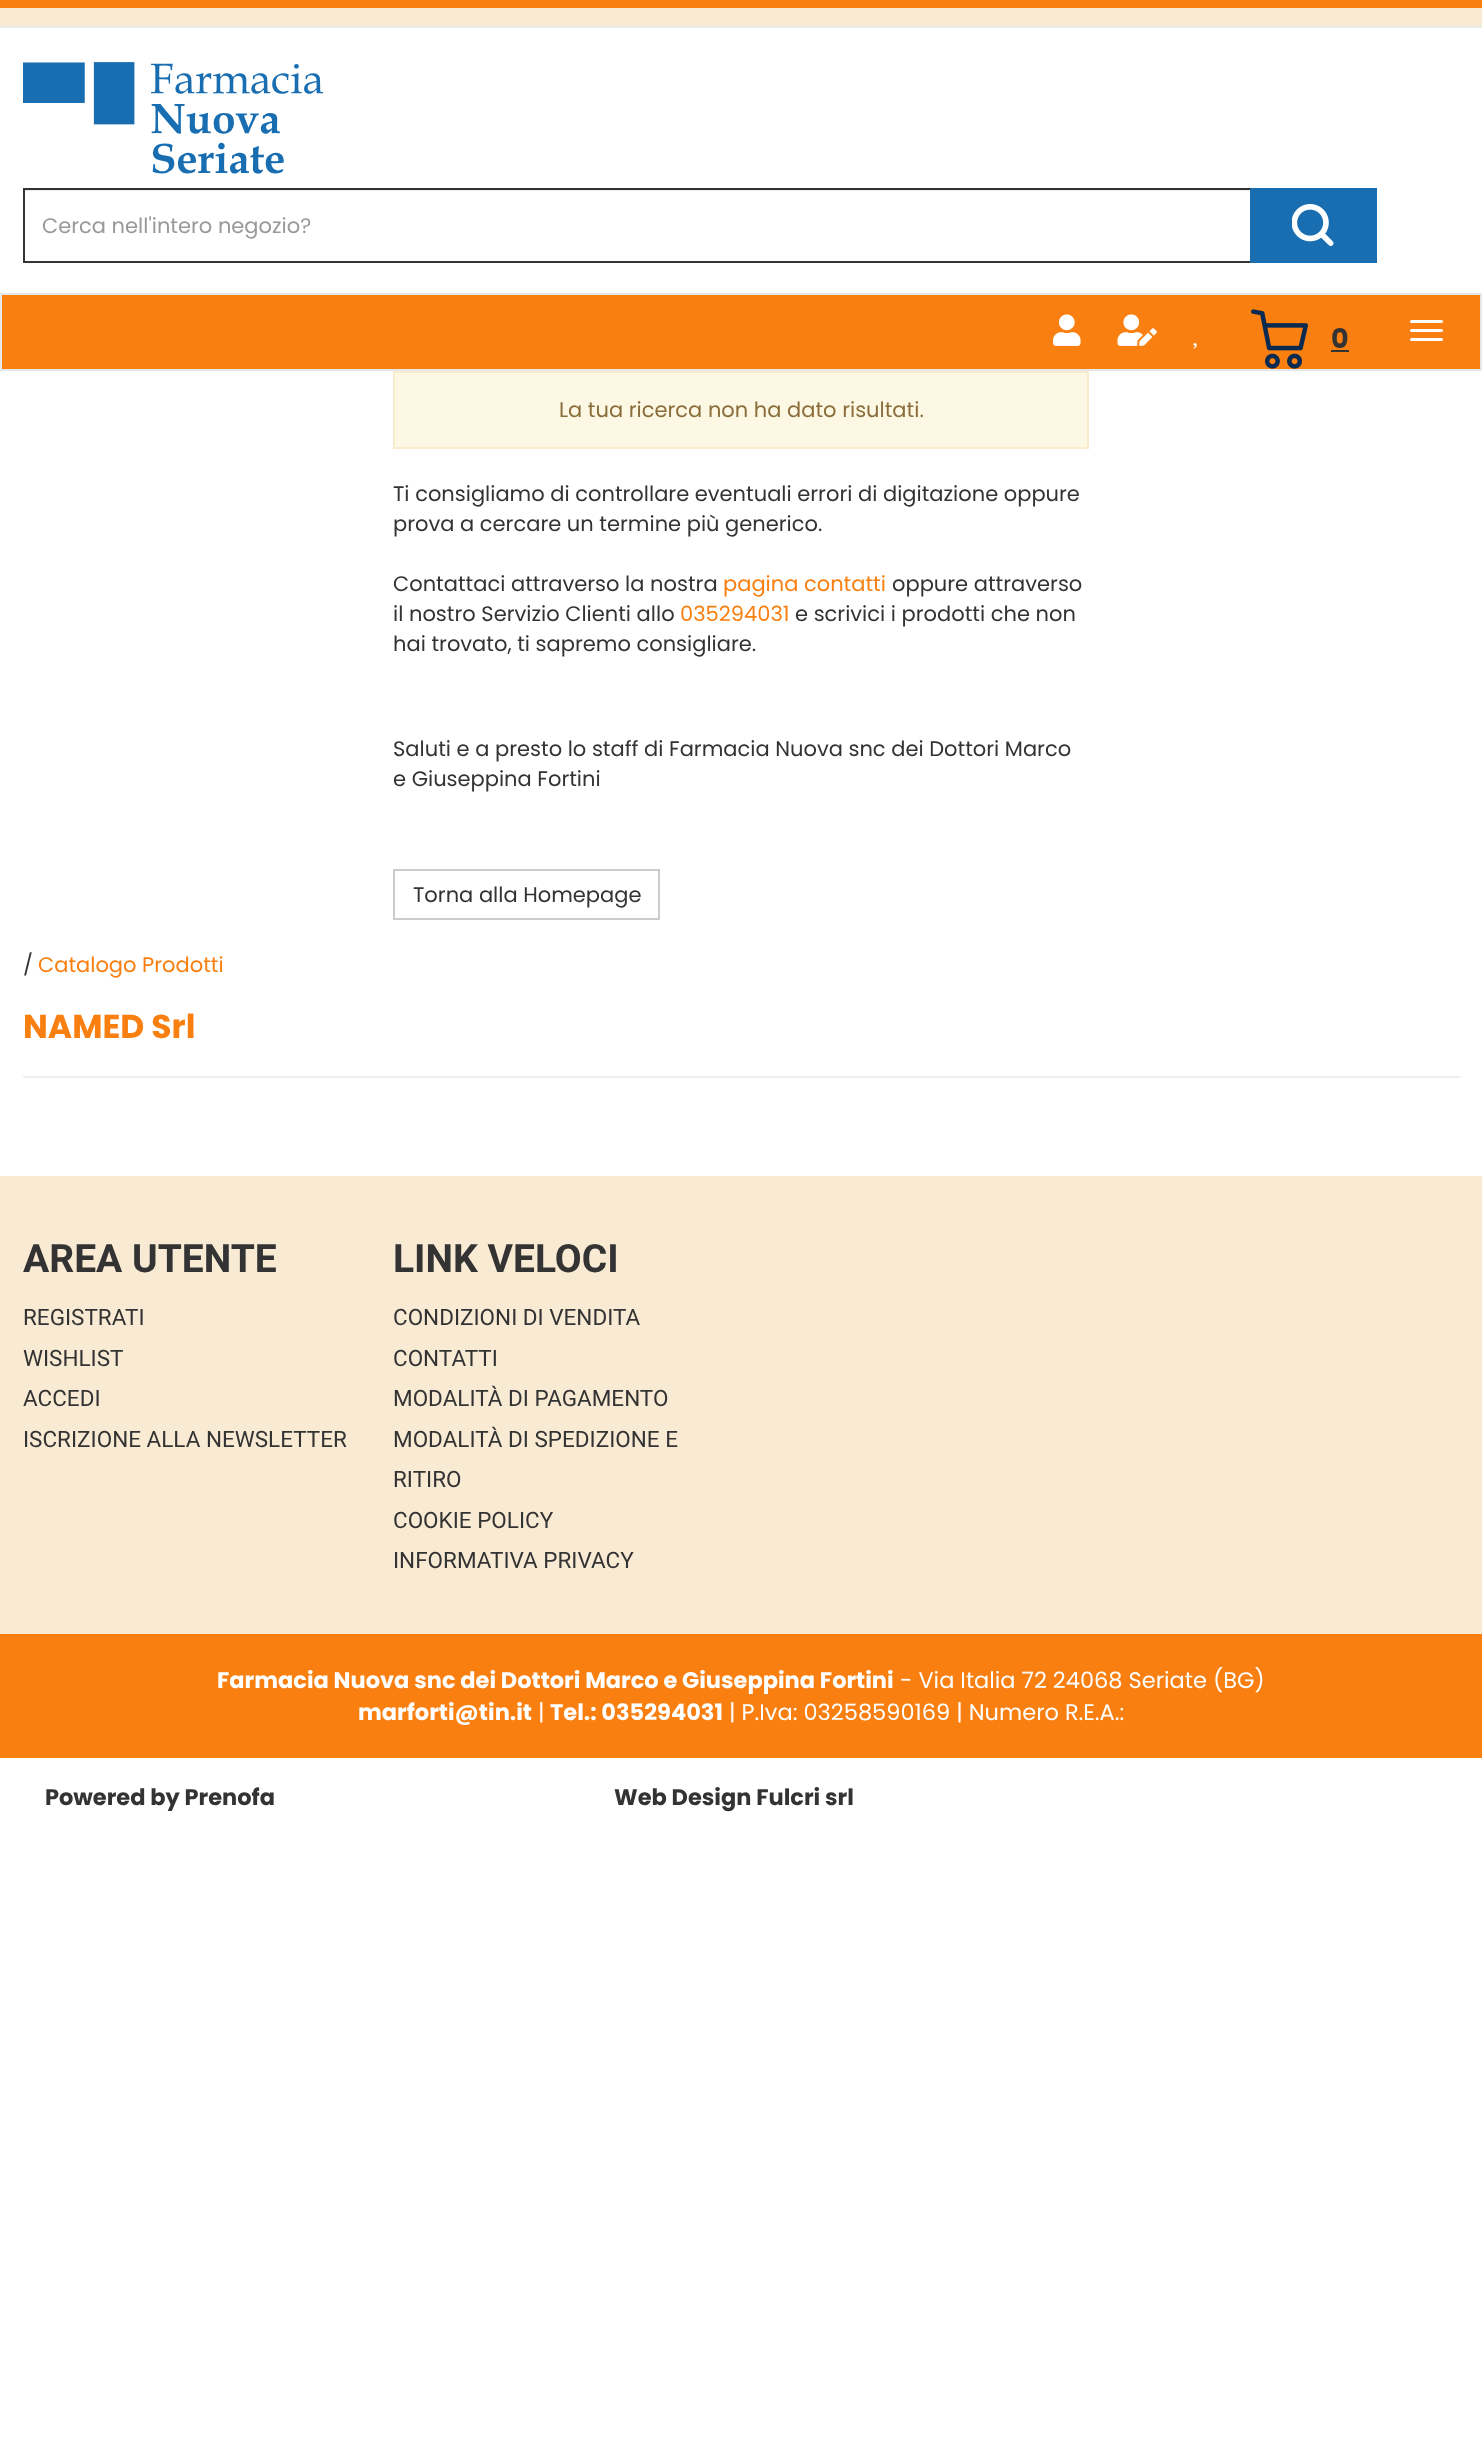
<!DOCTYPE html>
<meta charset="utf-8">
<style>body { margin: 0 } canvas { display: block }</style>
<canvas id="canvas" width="1482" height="2438"></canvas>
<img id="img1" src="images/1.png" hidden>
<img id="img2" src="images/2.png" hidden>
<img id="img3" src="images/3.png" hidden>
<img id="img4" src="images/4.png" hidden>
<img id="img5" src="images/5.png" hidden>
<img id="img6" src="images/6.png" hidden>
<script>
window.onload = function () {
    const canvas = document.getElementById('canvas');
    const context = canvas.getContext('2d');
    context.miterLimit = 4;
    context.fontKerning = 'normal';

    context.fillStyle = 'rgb(255, 255, 255)';
    context.fillRect(0, 0, 1482, 2438);
    context.fillStyle = 'rgb(249, 234, 211)';
    context.fillRect(0, 8, 1482, 18);
    context.fillStyle = 'rgb(248, 127, 16)';
    context.fillRect(0, 0, 1482, 8);
    context.fillStyle = 'rgb(235, 235, 235)';
    context.fillRect(0, 26, 1482, 2);
    context.drawImage(document.getElementById('img1'), 23, 62, 301, 112);
    context.fillStyle = 'rgb(236, 236, 236)';
    context.fillRect(24, 190, 1227, 1);
    context.strokeStyle = 'rgb(51, 51, 51)';
    context.lineWidth = 2;
    context.strokeRect(24, 189, 1228, 73);
    context.fillStyle = 'rgb(25, 110, 178)';
    context.fillRect(1250, 188, 127, 75);
    context.drawImage(document.getElementById('img2'), 1292, 204, 42, 42);
    context.fillStyle = 'rgb(248, 127, 16)';
    context.beginPath();
    context.rect(1, 294, 1480, 76);
    context.fill();
    context.strokeStyle = 'rgb(231, 231, 231)';
    context.stroke();
    context.drawImage(document.getElementById('img3'), 1053, 314, 28, 32);
    context.drawImage(document.getElementById('img4'), 1117, 314, 40, 32);
    context.drawImage(document.getElementById('img5'), 1193, 343, 4, 6);
    context.drawImage(document.getElementById('img6'), 1251, 309, 57, 60);
    context.fillStyle = 'rgb(51, 51, 51)';
    context.fillRect(1331, 350, 18, 2);
    context.fillStyle = 'rgb(255, 255, 255)';
    context.beginPath();
    context.roundRect(1410, 320, 33, 3, 1.5);
    context.fill();
    context.beginPath();
    context.roundRect(1410, 329, 33, 3, 1.5);
    context.fill();
    context.beginPath();
    context.roundRect(1410, 338, 33, 3, 1.5);
    context.fill();
    context.fillStyle = 'rgb(252, 248, 227)';
    context.beginPath();
    context.rect(394, 372, 694, 76);
    context.fill();
    context.strokeStyle = 'rgb(250, 235, 204)';
    context.stroke();
    context.strokeStyle = 'rgb(204, 204, 204)';
    context.strokeRect(394, 870, 265, 49);
    context.fillStyle = 'rgb(238, 238, 238)';
    context.fillRect(23, 1076, 1437, 2);
    context.fillStyle = 'rgb(249, 234, 211)';
    context.fillRect(0, 1176, 1482, 458);
    context.fillStyle = 'rgb(248, 127, 16)';
    context.fillRect(0, 1634, 1482, 124);
    context.font = '21px Poppins';
    context.fillStyle = 'rgb(153, 153, 153)';
    context.fillText('Cerca nell\'intero negozio?', 42, 233);
    context.font = 'bold 27px Poppins';
    context.fillStyle = 'rgb(51, 51, 51)';
    context.fillText('0', 1331, 348);
    context.font = '21px Poppins';
    context.fillStyle = 'rgb(138, 109, 59)';
    context.fillText('La tua ricerca non ha dato risultati.', 559, 417);
    context.fillStyle = 'rgb(51, 51, 51)';
    context.fillText('Ti consigliamo di controllare eventuali errori di digitazione oppure', 393, 501);
    context.fillText('prova a cercare un termine più generico.', 393, 531);
    context.fillText('Contattaci attraverso la nostra', 393, 591);
    context.fillStyle = 'rgb(248, 127, 16)';
    context.fillText('pagina contatti', 723, 591);
    context.fillStyle = 'rgb(51, 51, 51)';
    context.fillText('oppure attraverso', 892, 591);
    context.fillText('il nostro Servizio Clienti allo', 393, 621);
    context.fillStyle = 'rgb(248, 127, 16)';
    context.fillText('035294031', 680, 621);
    context.fillStyle = 'rgb(51, 51, 51)';
    context.fillText('e scrivici i prodotti che non', 795, 621);
    context.fillText('hai trovato, ti sapremo consigliare.', 393, 651);
    context.fillText('Saluti e a presto lo staff di Farmacia Nuova snc dei Dottori Marco', 393, 756);
    context.fillText('e Giuseppina Fortini', 393, 786);
    context.fillText('Torna alla Homepage', 413, 902);
    context.fillText('/', 23, 972);
    context.fillStyle = 'rgb(248, 127, 16)';
    context.fillText('Catalogo Prodotti', 38, 972);
    context.font = 'bold 33px Poppins';
    context.fillText('NAMED Srl', 23, 1038);
    context.font = 'bold 39px Roboto';
    context.fillStyle = 'rgb(51, 51, 51)';
    context.fillText('AREA UTENTE', 23, 1272);
    context.font = '22.5px Roboto';
    context.fillText('REGISTRATI', 23, 1325);
    context.fillText('WISHLIST', 23, 1366);
    context.fillText('ACCEDI', 23, 1406);
    context.fillText('ISCRIZIONE ALLA NEWSLETTER', 23, 1447);
    context.font = 'bold 39px Roboto';
    context.fillText('LINK VELOCI', 393, 1272);
    context.font = '22.5px Roboto';
    context.fillText('CONDIZIONI DI VENDITA', 393, 1325);
    context.fillText('CONTATTI', 393, 1366);
    context.fillText('MODALITÀ DI PAGAMENTO', 393, 1406);
    context.fillText('MODALITÀ DI SPEDIZIONE E', 393, 1447);
    context.fillText('RITIRO', 393, 1487);
    context.fillText('COOKIE POLICY', 393, 1528);
    context.fillText('INFORMATIVA PRIVACY', 393, 1568);
    context.font = 'bold 22.5px Poppins';
    context.fillStyle = 'rgb(255, 255, 255)';
    context.fillText('Farmacia Nuova snc dei Dottori Marco e Giuseppina Fortini', 217, 1688);
    context.font = '22.5px Poppins';
    context.fillText('- Via Italia 72 24068 Seriate (BG)', 900, 1688);
    context.font = 'bold 22.5px Poppins';
    context.fillText('marforti@tin.it', 358, 1720);
    context.font = '22.5px Poppins';
    context.fillText('|', 538, 1720);
    context.font = 'bold 22.5px Poppins';
    context.fillText('Tel.: 035294031', 550, 1720);
    context.font = '22.5px Poppins';
    context.fillText('| P.Iva: 03258590169 | Numero R.E.A.:', 729, 1720);
    context.font = 'bold 22.5px Poppins';
    context.fillStyle = 'rgb(51, 51, 51)';
    context.fillText('Powered by Prenofa', 45, 1805);
    context.fillText('Web Design Fulcri srl', 614, 1805);
};
</script>
